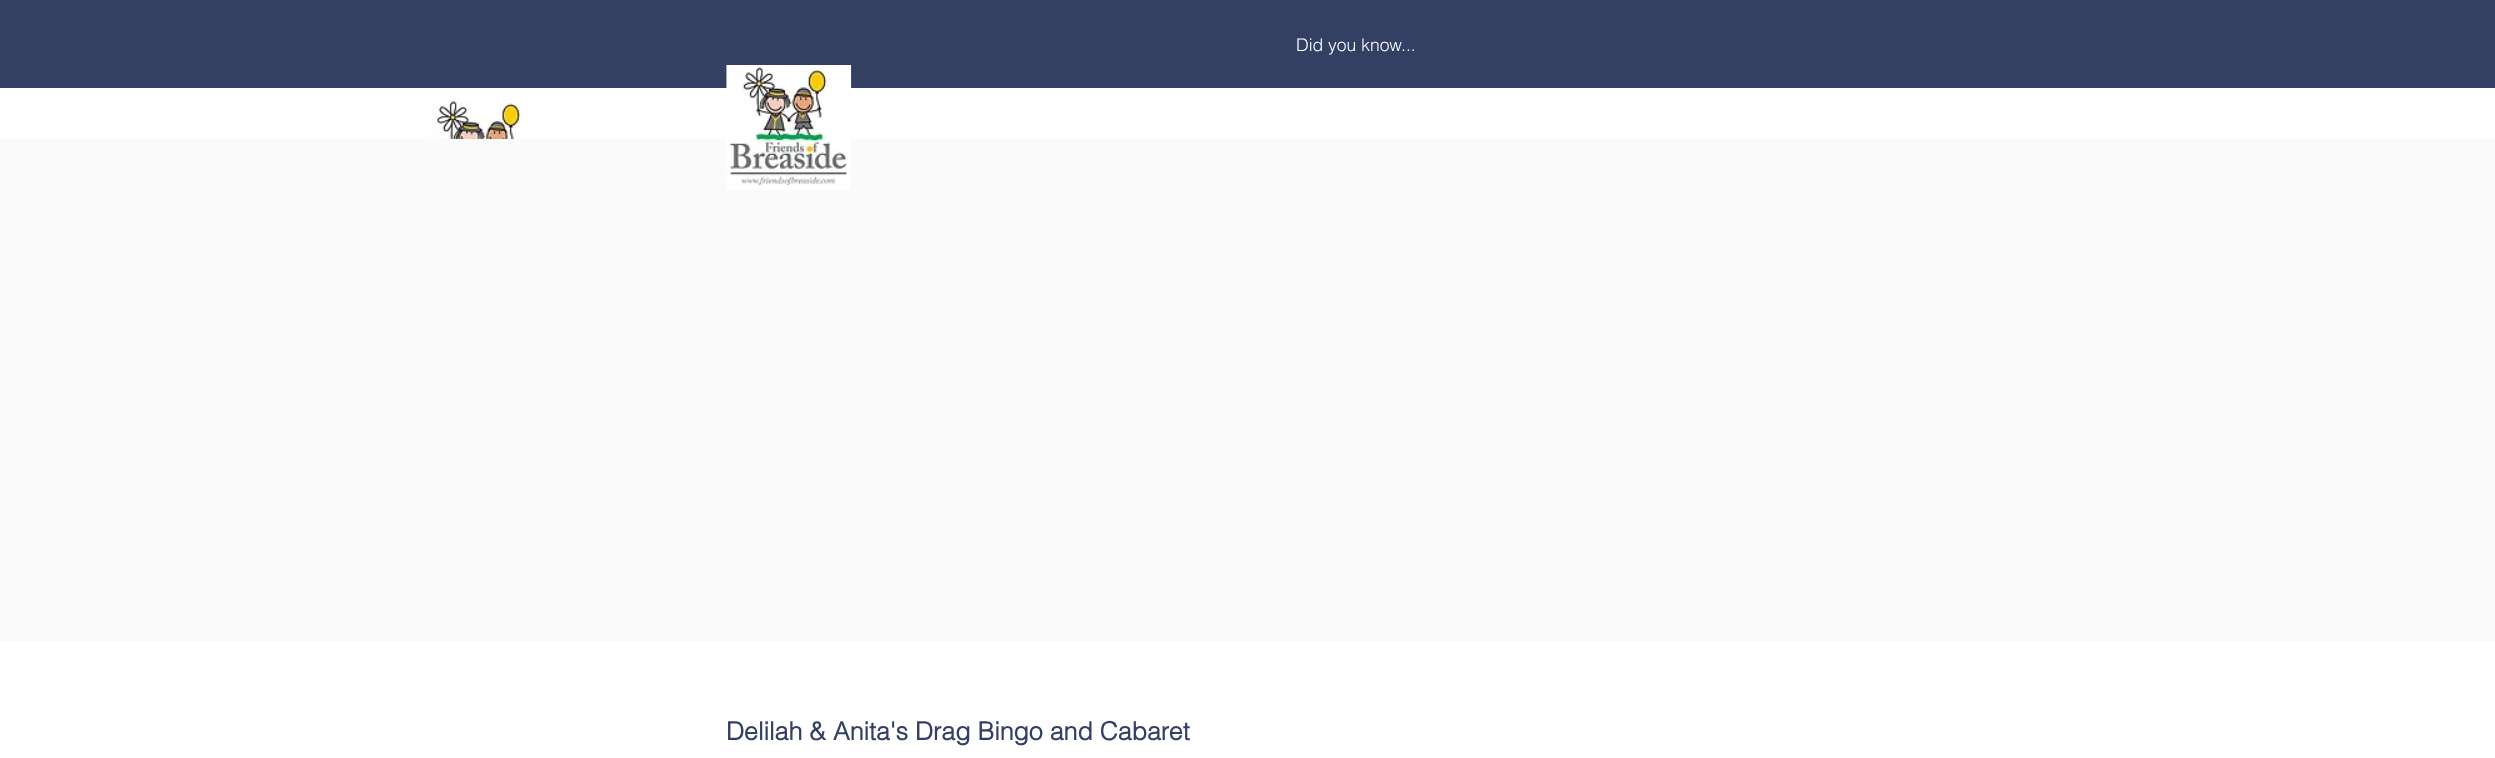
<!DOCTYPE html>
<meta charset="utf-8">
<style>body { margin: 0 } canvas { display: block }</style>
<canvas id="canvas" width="2495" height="758"></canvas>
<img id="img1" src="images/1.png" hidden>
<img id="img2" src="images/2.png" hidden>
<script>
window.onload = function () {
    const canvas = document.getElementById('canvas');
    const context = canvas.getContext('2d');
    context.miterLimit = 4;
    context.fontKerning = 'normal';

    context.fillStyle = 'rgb(255, 255, 255)';
    context.fillRect(0, 0, 2495, 758);
    context.fillStyle = 'rgb(52, 63, 100)';
    context.fillRect(0, 0, 2495, 88);
    context.drawImage(document.getElementById('img1'), 420, 99, 122, 40);
    context.fillStyle = 'rgb(250, 250, 250)';
    context.fillRect(0, 139, 2495, 502);
    context.drawImage(document.getElementById('img2'), 726, 65, 126, 125);
    context.font = '300 17.5px helvetica';
    context.fillStyle = 'rgb(255, 255, 255)';
    context.fillText('Did you know...', 1296, 51);
    context.font = 'bold 25px helvetica';
    context.fillStyle = 'rgb(52, 63, 100)';
    context.fillText('Delilah & Anita\'s Drag Bingo and Cabaret', 726, 740);
};
</script>
